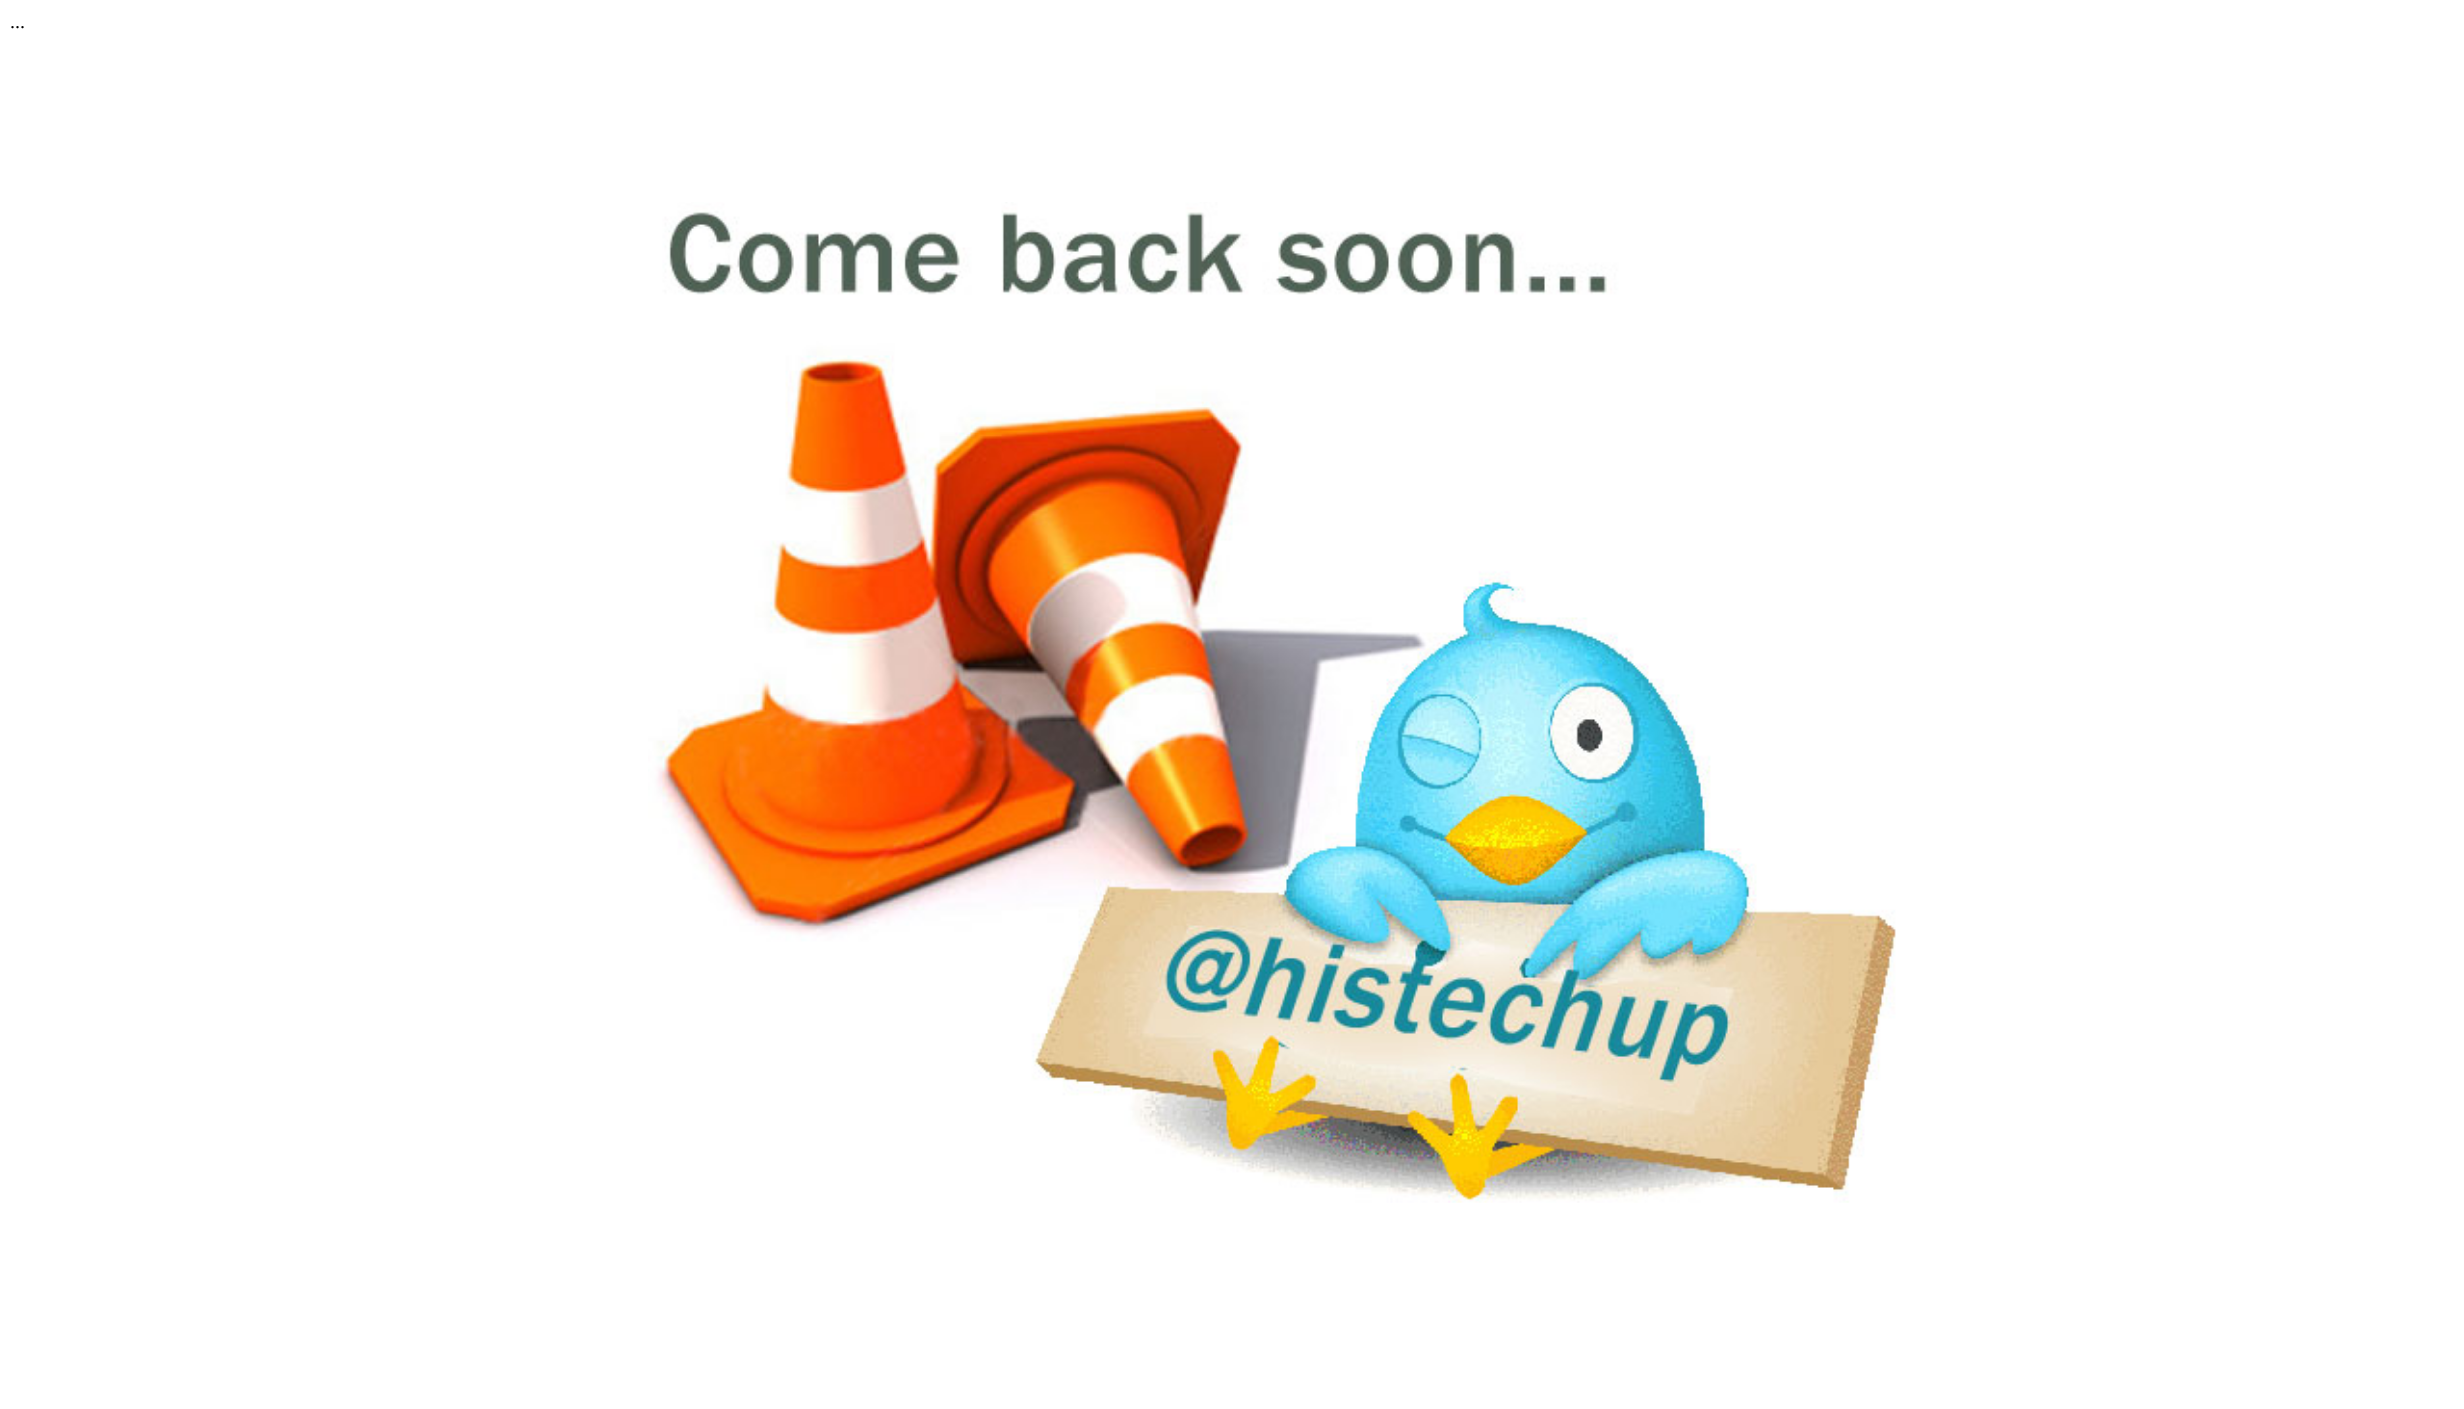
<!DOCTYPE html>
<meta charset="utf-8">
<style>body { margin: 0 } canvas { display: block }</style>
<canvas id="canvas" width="2464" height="1409"></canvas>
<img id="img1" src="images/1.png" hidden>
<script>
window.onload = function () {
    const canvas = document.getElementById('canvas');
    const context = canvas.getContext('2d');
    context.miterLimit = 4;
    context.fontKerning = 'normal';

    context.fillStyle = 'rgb(255, 255, 255)';
    context.fillRect(0, 0, 2464, 1409);
    context.drawImage(document.getElementById('img1'), 648, 202, 1248, 1001);
    context.font = '20px Liberation Serif';
    context.fillStyle = 'rgb(0, 0, 0)';
    context.fillText('...', 10, 28);
};
</script>
